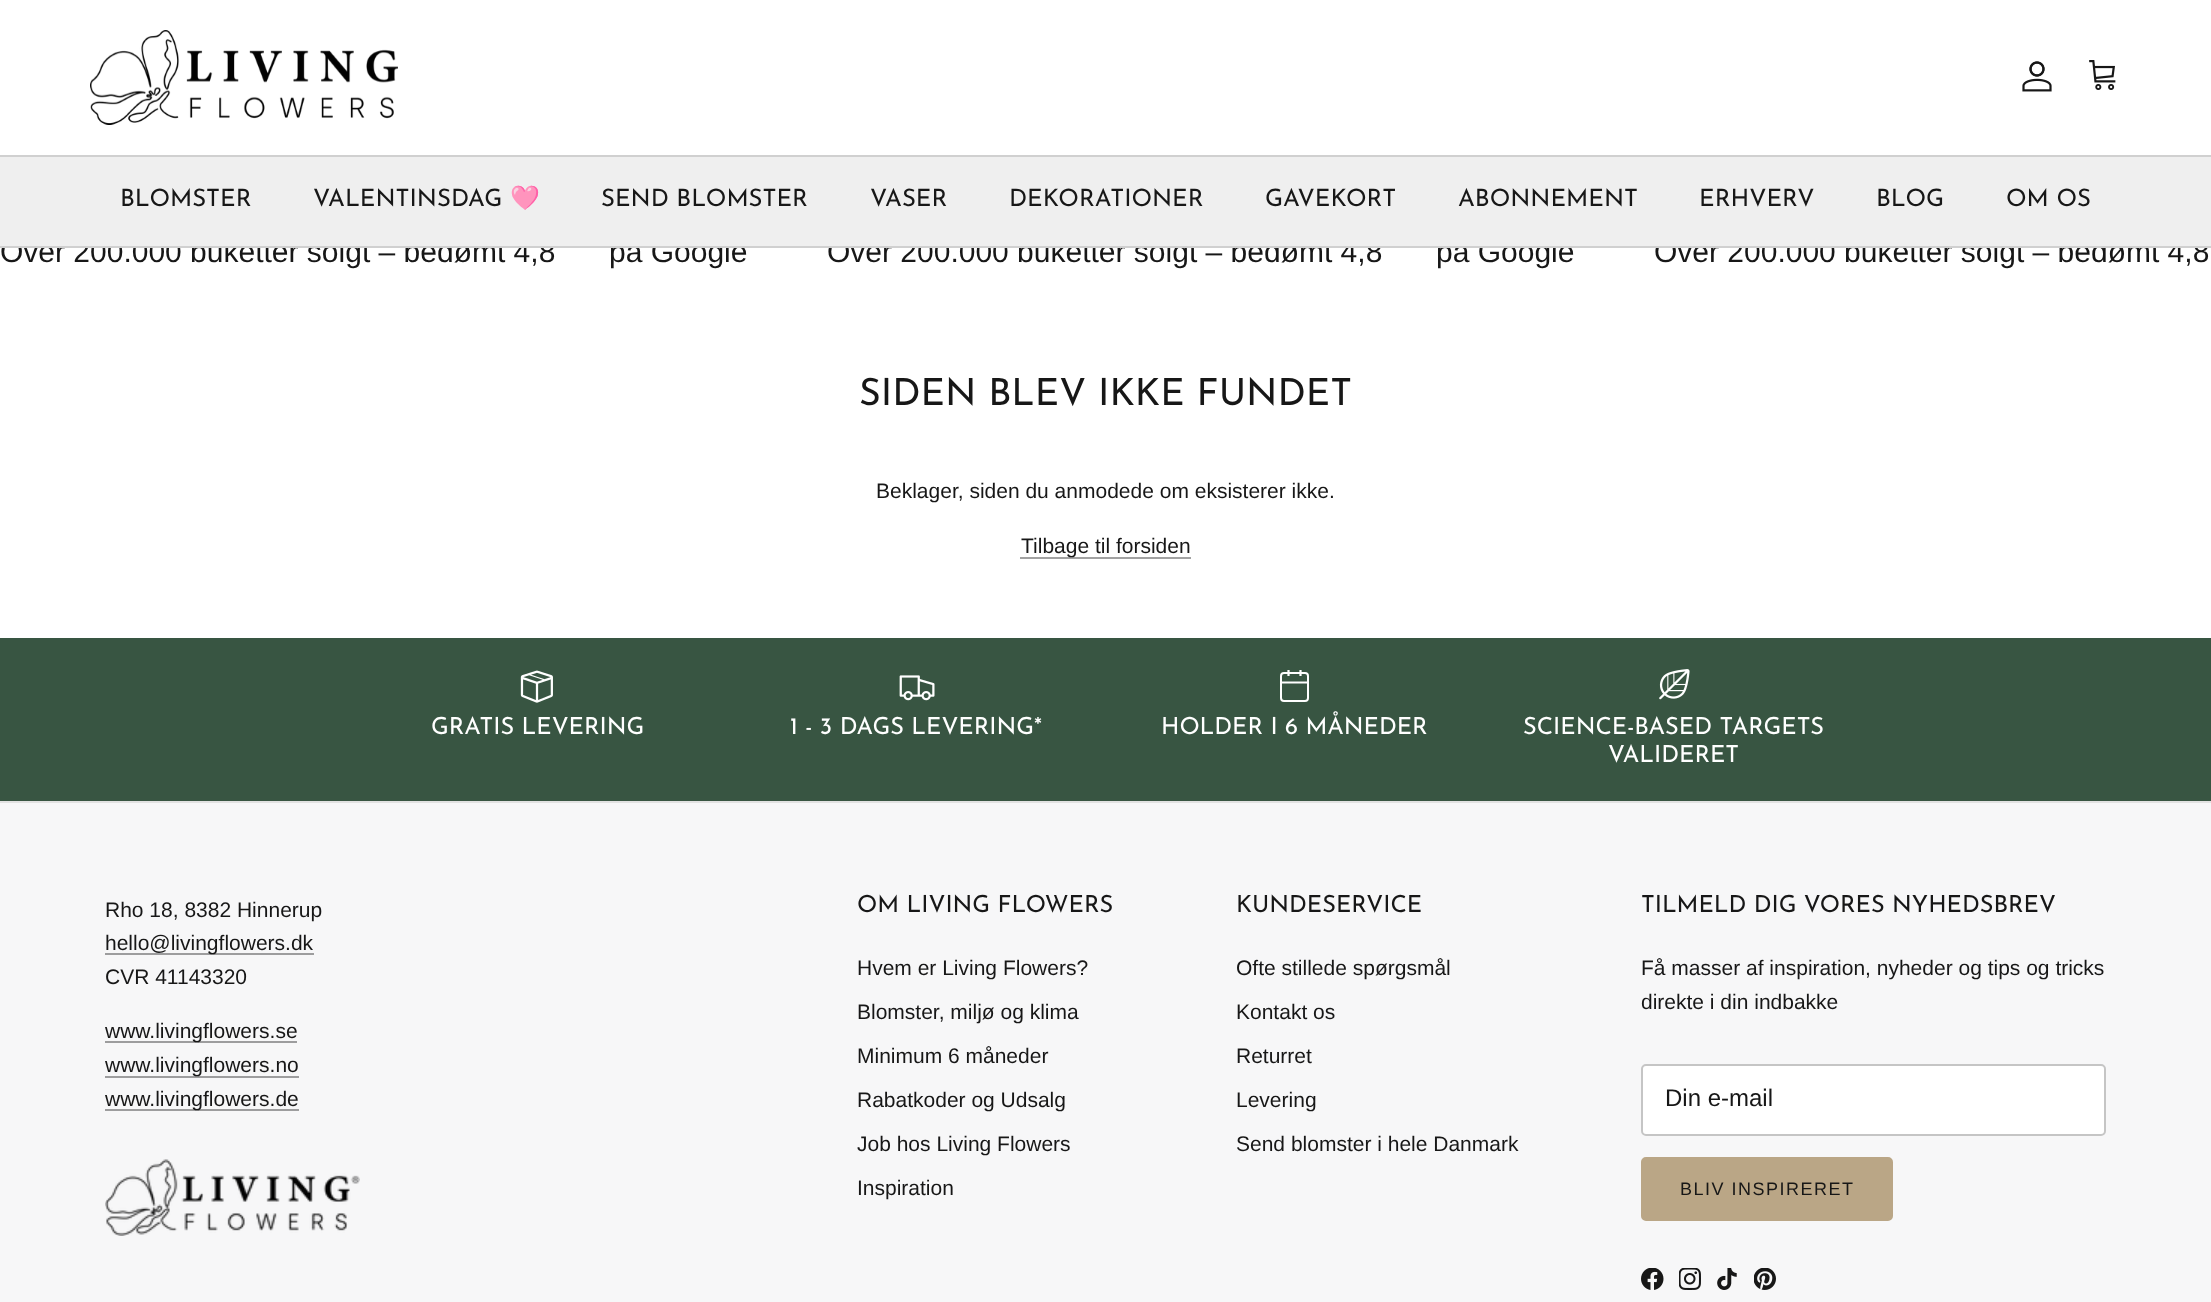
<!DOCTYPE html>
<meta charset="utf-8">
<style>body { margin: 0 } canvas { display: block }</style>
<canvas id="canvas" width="2211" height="1302"></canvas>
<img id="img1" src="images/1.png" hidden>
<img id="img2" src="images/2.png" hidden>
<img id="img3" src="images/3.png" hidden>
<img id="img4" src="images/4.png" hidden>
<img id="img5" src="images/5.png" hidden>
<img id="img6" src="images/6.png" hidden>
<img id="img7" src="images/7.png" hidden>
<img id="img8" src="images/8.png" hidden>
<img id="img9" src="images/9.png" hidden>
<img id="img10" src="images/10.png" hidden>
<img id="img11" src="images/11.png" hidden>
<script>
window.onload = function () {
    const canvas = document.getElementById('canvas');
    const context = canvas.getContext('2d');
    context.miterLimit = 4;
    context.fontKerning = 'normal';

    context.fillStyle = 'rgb(255, 255, 255)';
    context.fillRect(0, 0, 2211, 1302);
    context.fillStyle = 'rgb(208, 208, 208)';
    context.fillRect(0, 155, 2211, 2);
    context.drawImage(document.getElementById('img1'), 90, 30, 308, 95);
    context.drawImage(document.getElementById('img2'), 2022, 61, 30, 31);
    context.drawImage(document.getElementById('img3'), 2089, 60, 27, 30);
    context.fillStyle = 'rgb(162, 162, 162)';
    context.fillRect(1020, 557, 171, 2);
    context.fillStyle = 'rgb(56, 85, 66)';
    context.fillRect(0, 638, 2211, 163);
    context.drawImage(document.getElementById('img4'), 520, 670, 33, 33);
    context.drawImage(document.getElementById('img5'), 899, 675, 36, 26);
    context.beginPath();
    context.roundRect(1281, 673, 27, 28, 3);
    context.strokeStyle = 'rgb(255, 255, 255)';
    context.lineWidth = 2;
    context.stroke();
    context.beginPath();
    context.moveTo(1300.5, 670);
    context.lineTo(1300.5, 676);
    context.moveTo(1288.5, 670);
    context.lineTo(1288.5, 676);
    context.moveTo(1281, 682.5);
    context.lineTo(1308, 682.5);
    context.lineWidth = 2.2;
    context.stroke();
    context.drawImage(document.getElementById('img6'), 1659, 669, 31, 31);
    context.fillStyle = 'rgb(247, 247, 248)';
    context.fillRect(0, 803, 2211, 499);
    context.fillStyle = 'rgb(226, 226, 226)';
    context.fillRect(0, 801, 2211, 2);
    context.fillStyle = 'rgb(157, 157, 158)';
    context.fillRect(105, 953, 209, 2);
    context.fillRect(105, 1041, 192, 2);
    context.fillRect(105, 1076, 194, 2);
    context.fillRect(105, 1109, 194, 2);
    context.drawImage(document.getElementById('img7'), 105, 1159, 255, 77);
    context.fillStyle = 'rgb(255, 255, 255)';
    context.beginPath();
    context.roundRect(1642, 1065, 463, 70, 4);
    context.fill();
    context.strokeStyle = 'rgb(197, 197, 197)';
    context.lineWidth = 2;
    context.stroke();
    context.fillStyle = 'rgb(186, 166, 134)';
    context.beginPath();
    context.roundRect(1642, 1158, 250, 62, 4);
    context.fill();
    context.strokeStyle = 'rgb(186, 166, 134)';
    context.stroke();
    context.drawImage(document.getElementById('img8'), 1641, 1268, 23, 22);
    context.drawImage(document.getElementById('img9'), 1679, 1268, 22, 22);
    context.drawImage(document.getElementById('img10'), 1717, 1268, 20, 22);
    context.drawImage(document.getElementById('img11'), 1754, 1268, 22, 22);
    context.font = '30px Arimo';
    context.fillStyle = 'rgb(23, 23, 23)';
    context.fillText('Over 200.000 buketter solgt – bedømt 4,8', 0, 262);
    context.fillText('på Google', 609, 262);
    context.fillText('Over 200.000 buketter solgt – bedømt 4,8', 827, 262);
    context.fillText('på Google', 1436, 262);
    context.fillText('Over 200.000 buketter solgt – bedømt 4,8', 1654, 262);
    context.fillStyle = 'rgb(239, 239, 239)';
    context.fillRect(0, 157, 2211, 89);
    context.font = '24px Josefin Sans';
    context.fillStyle = 'rgb(23, 23, 23)';
    context.fillText('OM OS', 2006, 206);
    context.fillText('BLOG', 1876, 206);
    context.fillText('ERHVERV', 1699, 206);
    context.fillText('ABONNEMENT', 1458, 206);
    context.fillText('GAVEKORT', 1265, 206);
    context.fillText('DEKORATIONER', 1009, 206);
    context.fillText('VASER', 870, 206);
    context.fillText('SEND BLOMSTER', 601, 206);
    context.font = '24px Noto Color Emoji';
    context.fillText('🩷', 510, 206);
    context.font = '24px Josefin Sans';
    context.fillText('VALENTINSDAG', 313, 206);
    context.fillText('BLOMSTER', 120, 206);
    context.fillStyle = 'rgb(208, 208, 208)';
    context.fillRect(0, 246, 2211, 2);
    context.font = '37.5px Josefin Sans';
    context.fillStyle = 'rgb(23, 23, 23)';
    context.fillText('SIDEN BLEV IKKE FUNDET', 859, 405);
    context.font = '21px Arimo';
    context.fillText('Beklager, siden du anmodede om eksisterer ikke.', 876, 498);
    context.fillText('Tilbage til forsiden', 1021, 553);
    context.font = '23.6px Josefin Sans';
    context.fillStyle = 'rgb(255, 255, 255)';
    context.fillText('GRATIS LEVERING', 431, 734);
    context.fillText('1 - 3 DAGS LEVERING*', 790, 734);
    context.fillText('HOLDER I 6 MÅNEDER', 1161, 734);
    context.fillText('SCIENCE-BASED TARGETS', 1523, 734);
    context.fillText('VALIDERET', 1608, 762);
    context.font = '21px Arimo';
    context.fillStyle = 'rgb(23, 23, 23)';
    context.fillText('Rho 18, 8382 Hinnerup', 105, 917);
    context.fillText('hello@livingflowers.dk', 105, 950);
    context.fillText('CVR 41143320', 105, 984);
    context.fillText('www.livingflowers.se', 105, 1038);
    context.fillText('www.livingflowers.no', 105, 1072);
    context.fillText('www.livingflowers.de', 105, 1106);
    context.font = '23.6px Josefin Sans';
    context.fillText('OM LIVING FLOWERS', 857, 912);
    context.font = '21px Arimo';
    context.fillText('Hvem er Living Flowers?', 857, 975);
    context.fillText('Blomster, miljø og klima', 857, 1019);
    context.fillText('Minimum 6 måneder', 857, 1063);
    context.fillText('Rabatkoder og Udsalg', 857, 1107);
    context.fillText('Job hos Living Flowers', 857, 1151);
    context.fillText('Inspiration', 857, 1195);
    context.font = '23.6px Josefin Sans';
    context.fillText('KUNDESERVICE', 1236, 912);
    context.font = '21px Arimo';
    context.fillText('Ofte stillede spørgsmål', 1236, 975);
    context.fillText('Kontakt os', 1236, 1019);
    context.fillText('Returret', 1236, 1063);
    context.fillText('Levering', 1236, 1107);
    context.fillText('Send blomster i hele Danmark', 1236, 1151);
    context.font = '23.6px Josefin Sans';
    context.fillText('TILMELD DIG VORES NYHEDSBREV', 1641, 912);
    context.font = '21px Arimo';
    context.fillText('Få masser af inspiration, nyheder og tips og tricks', 1641, 975);
    context.fillText('direkte i din indbakke', 1641, 1009);
    context.font = '24px Arimo';
    context.fillText('Din e-mail', 1665, 1106);
    context.letterSpacing = '1.5px';
    context.font = '18px Arimo';
    context.fillText('BLIV INSPIRERET', 1680, 1195);
};
</script>
